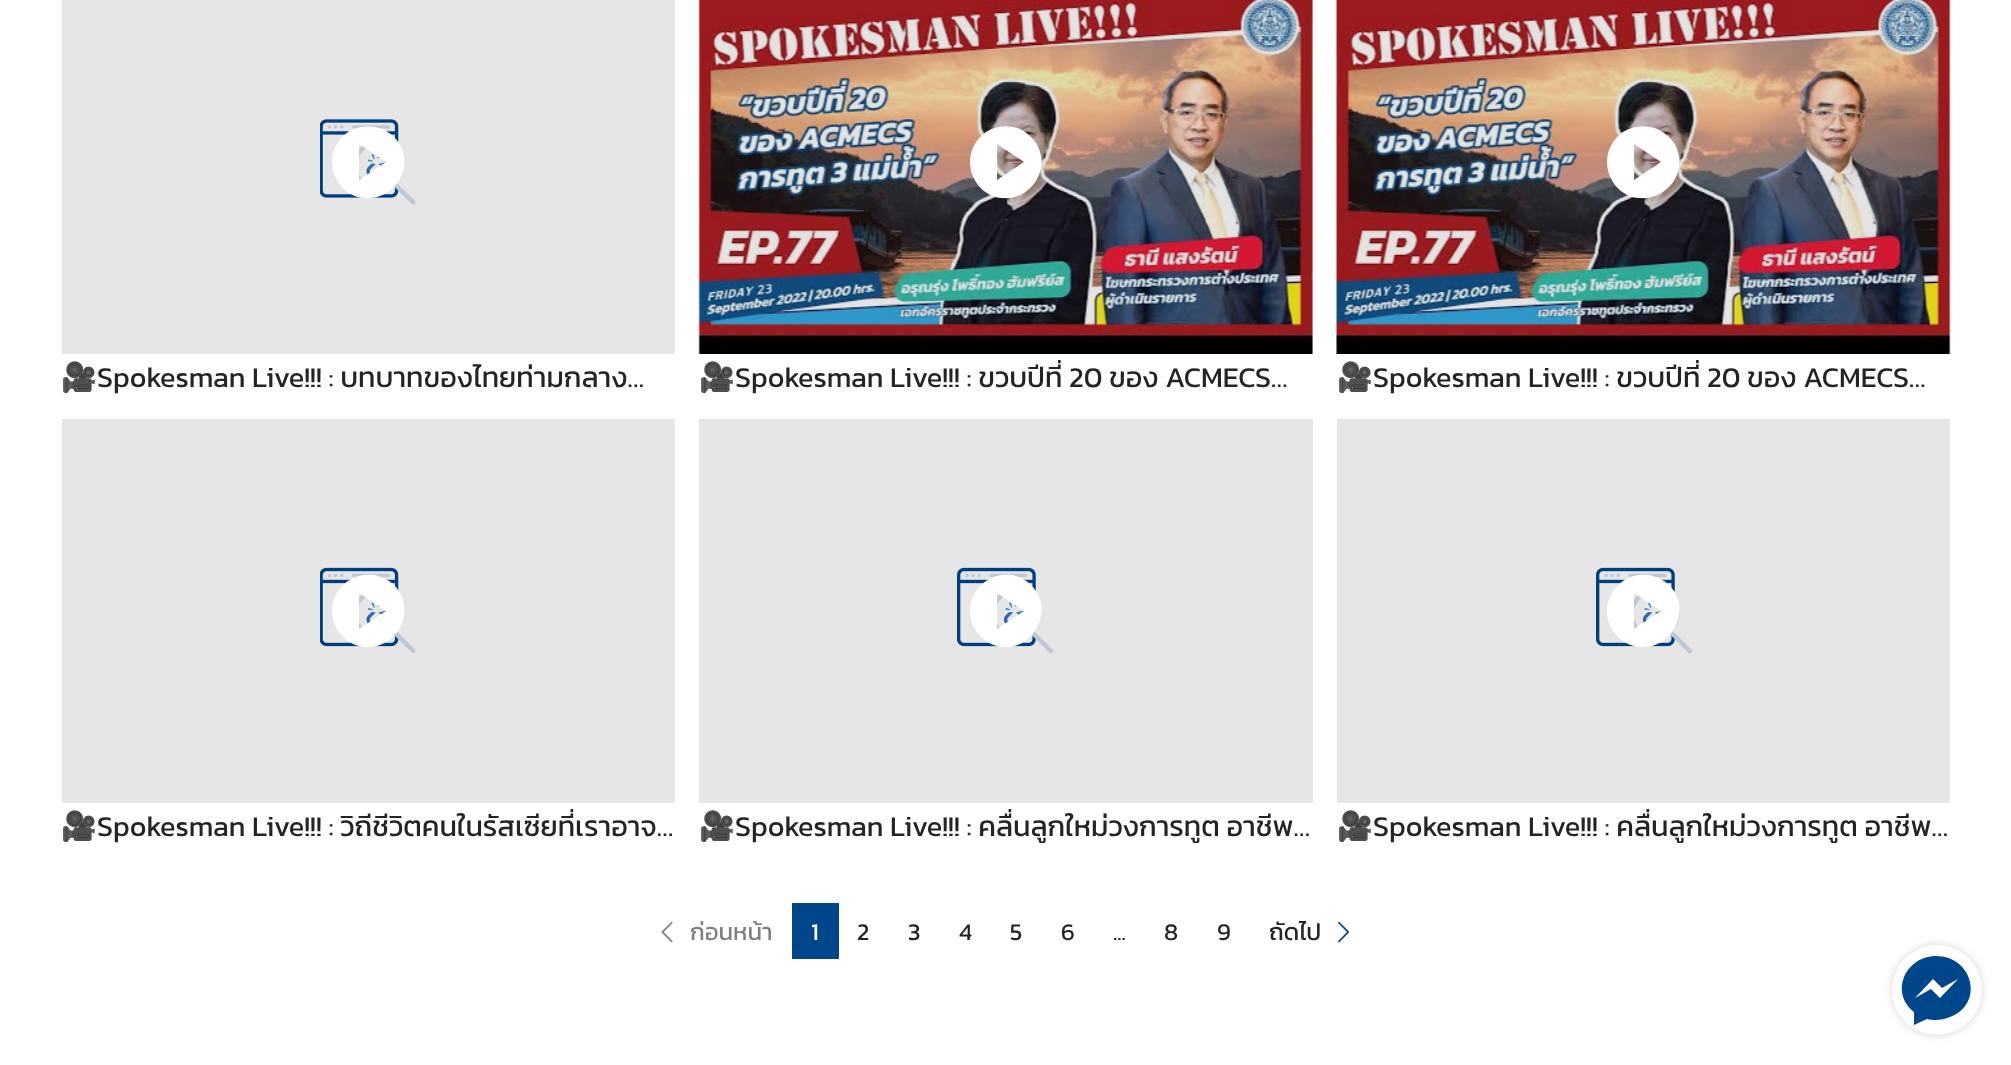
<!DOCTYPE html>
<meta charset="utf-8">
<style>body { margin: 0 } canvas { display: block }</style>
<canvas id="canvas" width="2011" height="1065"></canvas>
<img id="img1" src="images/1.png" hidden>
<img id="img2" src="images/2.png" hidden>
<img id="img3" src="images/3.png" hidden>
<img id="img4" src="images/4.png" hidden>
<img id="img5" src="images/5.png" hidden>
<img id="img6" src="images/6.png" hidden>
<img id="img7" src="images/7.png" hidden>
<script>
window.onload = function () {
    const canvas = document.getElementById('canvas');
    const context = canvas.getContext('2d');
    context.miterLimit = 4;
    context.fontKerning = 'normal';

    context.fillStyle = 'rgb(255, 255, 255)';
    context.fillRect(0, 0, 2011, 1065);
    context.fillStyle = 'rgb(230, 230, 230)';
    context.fillRect(1337, 419, 613, 384);
    context.fillRect(699, 419, 614, 384);
    context.fillRect(62, 419, 613, 384);
    context.fillRect(1949, 0, 1, 354);
    context.fillRect(699, 0, 614, 354);
    context.fillRect(62, 0, 613, 354);
    context.drawImage(document.getElementById('img1'), 320, 119, 96, 86);
    context.fillStyle = 'rgb(255, 255, 255)';
    context.beginPath();
    context.moveTo(332, 162);
    context.bezierCurveTo(332, 150, 338, 139, 348, 132);
    context.bezierCurveTo(356, 127, 366, 125, 375, 127);
    context.bezierCurveTo(382, 128, 389, 132, 394, 137);
    context.bezierCurveTo(418, 161, 398, 201, 364, 198);
    context.bezierCurveTo(346, 197, 332, 180, 332, 162);
    context.closePath();
    context.moveTo(359, 180);
    context.lineTo(386, 162);
    context.lineTo(359, 144);
    context.closePath();
    context.fill();
    context.drawImage(document.getElementById('img2'), 698, 0, 615, 354);
    context.beginPath();
    context.moveTo(970, 162);
    context.bezierCurveTo(970, 150, 976, 139, 986, 132);
    context.bezierCurveTo(994, 127, 1003, 125, 1013, 127);
    context.bezierCurveTo(1020, 128, 1026, 132, 1031, 137);
    context.bezierCurveTo(1055, 161, 1035, 201, 1002, 198);
    context.bezierCurveTo(984, 197, 970, 180, 970, 162);
    context.closePath();
    context.moveTo(997, 180);
    context.lineTo(1024, 162);
    context.lineTo(997, 144);
    context.closePath();
    context.fill();
    context.drawImage(document.getElementById('img3'), 1336, 0, 615, 354);
    context.beginPath();
    context.moveTo(1607, 162);
    context.bezierCurveTo(1607, 150, 1613, 139, 1623, 132);
    context.bezierCurveTo(1631, 127, 1641, 125, 1650, 127);
    context.bezierCurveTo(1657, 128, 1664, 132, 1669, 137);
    context.bezierCurveTo(1693, 161, 1673, 201, 1639, 198);
    context.bezierCurveTo(1621, 197, 1607, 180, 1607, 162);
    context.closePath();
    context.moveTo(1634, 180);
    context.lineTo(1661, 162);
    context.lineTo(1634, 144);
    context.closePath();
    context.fill();
    context.drawImage(document.getElementById('img4'), 320, 567, 96, 87);
    context.beginPath();
    context.moveTo(332, 611);
    context.bezierCurveTo(332, 599, 338, 588, 348, 581);
    context.bezierCurveTo(356, 575, 366, 574, 375, 575);
    context.bezierCurveTo(382, 577, 389, 580, 394, 585);
    context.bezierCurveTo(418, 609, 398, 650, 364, 647);
    context.bezierCurveTo(346, 645, 332, 629, 332, 611);
    context.closePath();
    context.moveTo(359, 629);
    context.lineTo(386, 611);
    context.lineTo(359, 593);
    context.closePath();
    context.fill();
    context.drawImage(document.getElementById('img5'), 957, 567, 96, 87);
    context.beginPath();
    context.moveTo(970, 611);
    context.bezierCurveTo(970, 599, 976, 588, 986, 581);
    context.bezierCurveTo(994, 575, 1003, 574, 1013, 575);
    context.bezierCurveTo(1020, 577, 1026, 580, 1031, 585);
    context.bezierCurveTo(1055, 609, 1035, 650, 1002, 647);
    context.bezierCurveTo(984, 645, 970, 629, 970, 611);
    context.closePath();
    context.moveTo(997, 629);
    context.lineTo(1024, 611);
    context.lineTo(997, 593);
    context.closePath();
    context.fill();
    context.drawImage(document.getElementById('img5'), 1596, 567, 96, 87);
    context.beginPath();
    context.moveTo(1607, 611);
    context.bezierCurveTo(1607, 599, 1613, 588, 1623, 581);
    context.bezierCurveTo(1631, 575, 1641, 574, 1650, 575);
    context.bezierCurveTo(1657, 577, 1664, 580, 1669, 585);
    context.bezierCurveTo(1693, 609, 1673, 650, 1639, 647);
    context.bezierCurveTo(1621, 645, 1607, 629, 1607, 611);
    context.closePath();
    context.moveTo(1634, 629);
    context.lineTo(1661, 611);
    context.lineTo(1634, 593);
    context.closePath();
    context.fill();
    context.drawImage(document.getElementById('img6'), 661, 921, 12, 22);
    context.fillStyle = 'rgb(0, 70, 138)';
    context.fillRect(792, 903, 47, 56);
    context.drawImage(document.getElementById('img7'), 1338, 921, 12, 22);
    context.fillStyle = 'rgba(0, 0, 0, 0.16)';
    context.filter = 'blur(4.5px)';
    context.beginPath();
    context.roundRect(1892, 945, 90, 90, 45);
    context.fill();
    context.filter = 'none';
    context.fillStyle = 'rgb(255, 255, 255)';
    context.beginPath();
    context.arc(1937, 990, 45, 0, 2 * Math.PI);
    context.fill();
    context.fillStyle = 'rgb(0, 70, 138)';
    context.beginPath();
    context.moveTo(1936, 956);
    context.bezierCurveTo(1906, 956, 1889, 992, 1914, 1012);
    context.lineTo(1914, 1025);
    context.lineTo(1927, 1019);
    context.bezierCurveTo(1934, 1021, 1943, 1020, 1950, 1017);
    context.bezierCurveTo(1985, 1004, 1973, 956, 1936, 956);
    context.closePath();
    context.moveTo(1940, 998);
    context.lineTo(1931, 989);
    context.lineTo(1915, 998);
    context.lineTo(1933, 979);
    context.lineTo(1942, 988);
    context.lineTo(1958, 979);
    context.closePath();
    context.fill();
    context.save();
    context.beginPath();
    context.rect(62, 360, 613, 35);
    context.clip();
    context.font = '28.8px Noto Color Emoji';
    context.fillStyle = 'rgb(36, 36, 39)';
    context.fillText('🎥', 61, 387);
    context.restore();
    context.font = '28.8px Kanit';
    context.fillStyle = 'rgb(36, 36, 39)';
    context.fillText('Spokesman Live!!! : บทบาทของไทยท่ามกลาง…', 97, 387);
    context.save();
    context.beginPath();
    context.rect(699, 360, 614, 35);
    context.clip();
    context.font = '28.8px Noto Color Emoji';
    context.fillText('🎥', 699, 387);
    context.font = '28.8px Kanit';
    context.fillText('Spokesman Live!!! : ขวบปีที่ 20 ของ ACMECS…', 735, 387);
    context.restore();
    context.save();
    context.beginPath();
    context.rect(1337, 360, 613, 35);
    context.clip();
    context.font = '28.8px Noto Color Emoji';
    context.fillText('🎥', 1337, 387);
    context.font = '28.8px Kanit';
    context.fillText('Spokesman Live!!! : ขวบปีที่ 20 ของ ACMECS…', 1373, 387);
    context.restore();
    context.save();
    context.beginPath();
    context.rect(62, 809, 613, 34);
    context.clip();
    context.font = '28.8px Noto Color Emoji';
    context.fillText('🎥', 61, 836);
    context.font = '28.8px Kanit';
    context.fillText('Spokesman Live!!! : วิถีชีวิตคนในรัสเซียที่เราอาจ…', 97, 836);
    context.restore();
    context.save();
    context.beginPath();
    context.rect(699, 809, 614, 34);
    context.clip();
    context.font = '28.8px Noto Color Emoji';
    context.fillText('🎥', 699, 836);
    context.font = '28.8px Kanit';
    context.fillText('Spokesman Live!!! : คลื่นลูกใหม่วงการทูต อาชีพ…', 735, 836);
    context.restore();
    context.save();
    context.beginPath();
    context.rect(1337, 809, 613, 34);
    context.clip();
    context.font = '28.8px Noto Color Emoji';
    context.fillText('🎥', 1337, 836);
    context.font = '28.8px Kanit';
    context.fillText('Spokesman Live!!! : คลื่นลูกใหม่วงการทูต อาชีพ…', 1373, 836);
    context.restore();
    context.font = '24px Kanit';
    context.fillStyle = 'rgb(128, 128, 128)';
    context.fillText('ก่อนหน้า', 690, 940);
    context.fillStyle = 'rgb(255, 255, 255)';
    context.fillText('1', 811, 940);
    context.fillStyle = 'rgb(36, 36, 39)';
    context.fillText('2', 857, 940);
    context.fillText('3', 908, 940);
    context.fillText('4', 959, 940);
    context.fillText('5', 1010, 940);
    context.fillText('6', 1061, 940);
    context.fillText('...', 1113, 940);
    context.fillText('8', 1164, 940);
    context.fillText('9', 1217, 940);
    context.fillText('ถัดไป', 1269, 940);
};
</script>
